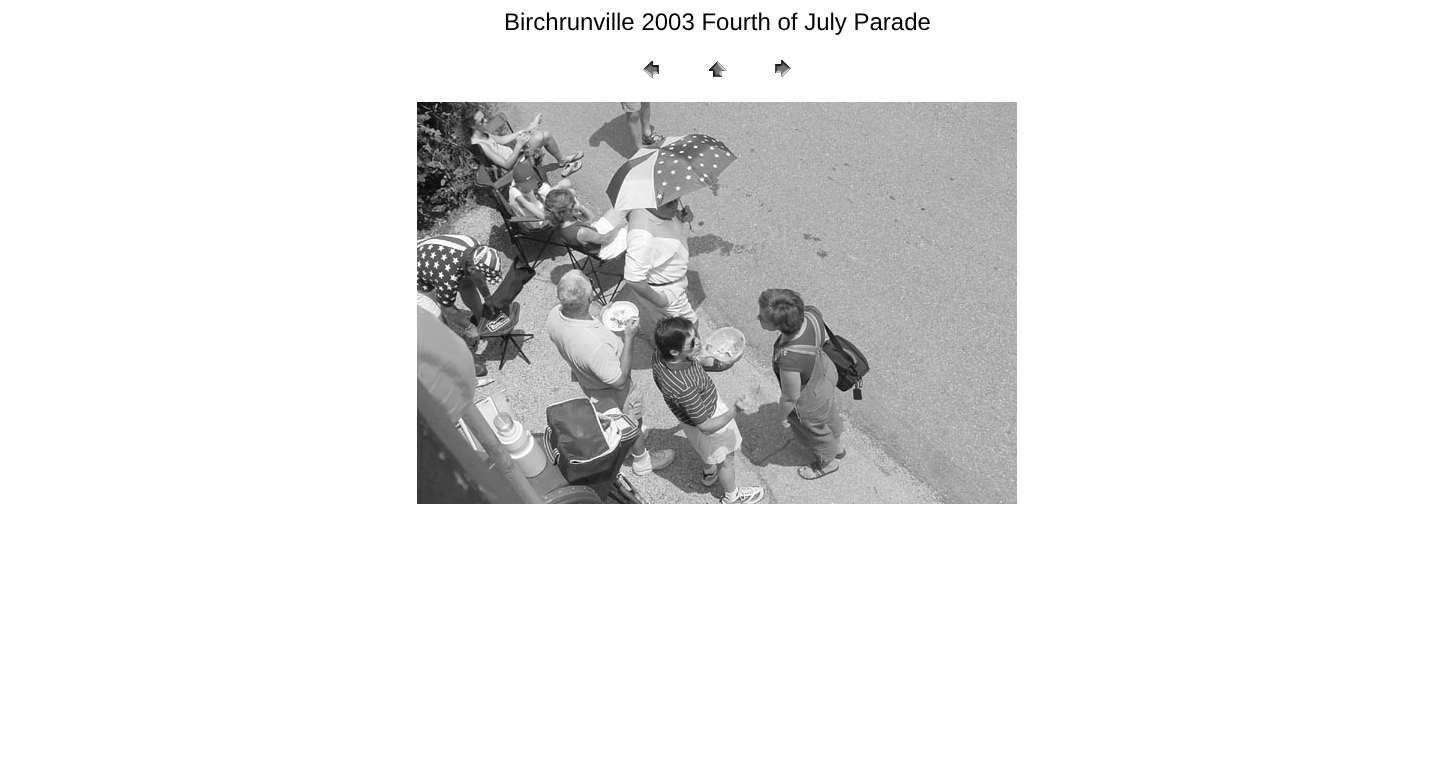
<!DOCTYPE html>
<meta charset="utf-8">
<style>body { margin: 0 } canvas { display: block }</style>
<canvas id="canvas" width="1434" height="782"></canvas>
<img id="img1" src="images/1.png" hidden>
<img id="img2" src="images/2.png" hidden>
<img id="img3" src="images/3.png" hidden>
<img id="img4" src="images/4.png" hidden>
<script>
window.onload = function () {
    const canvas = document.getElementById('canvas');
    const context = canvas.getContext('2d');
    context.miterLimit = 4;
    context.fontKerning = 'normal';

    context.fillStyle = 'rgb(255, 255, 255)';
    context.fillRect(0, 0, 1434, 782);
    context.drawImage(document.getElementById('img1'), 643, 61, 16, 17);
    context.drawImage(document.getElementById('img2'), 709, 61, 17, 16);
    context.drawImage(document.getElementById('img3'), 775, 60, 16, 17);
    context.drawImage(document.getElementById('img4'), 417, 102, 600, 402);
    context.font = '24px Liberation Sans';
    context.fillStyle = 'rgb(0, 0, 0)';
    context.fillText('Birchrunville 2003 Fourth of July Parade', 504, 30);
};
</script>
